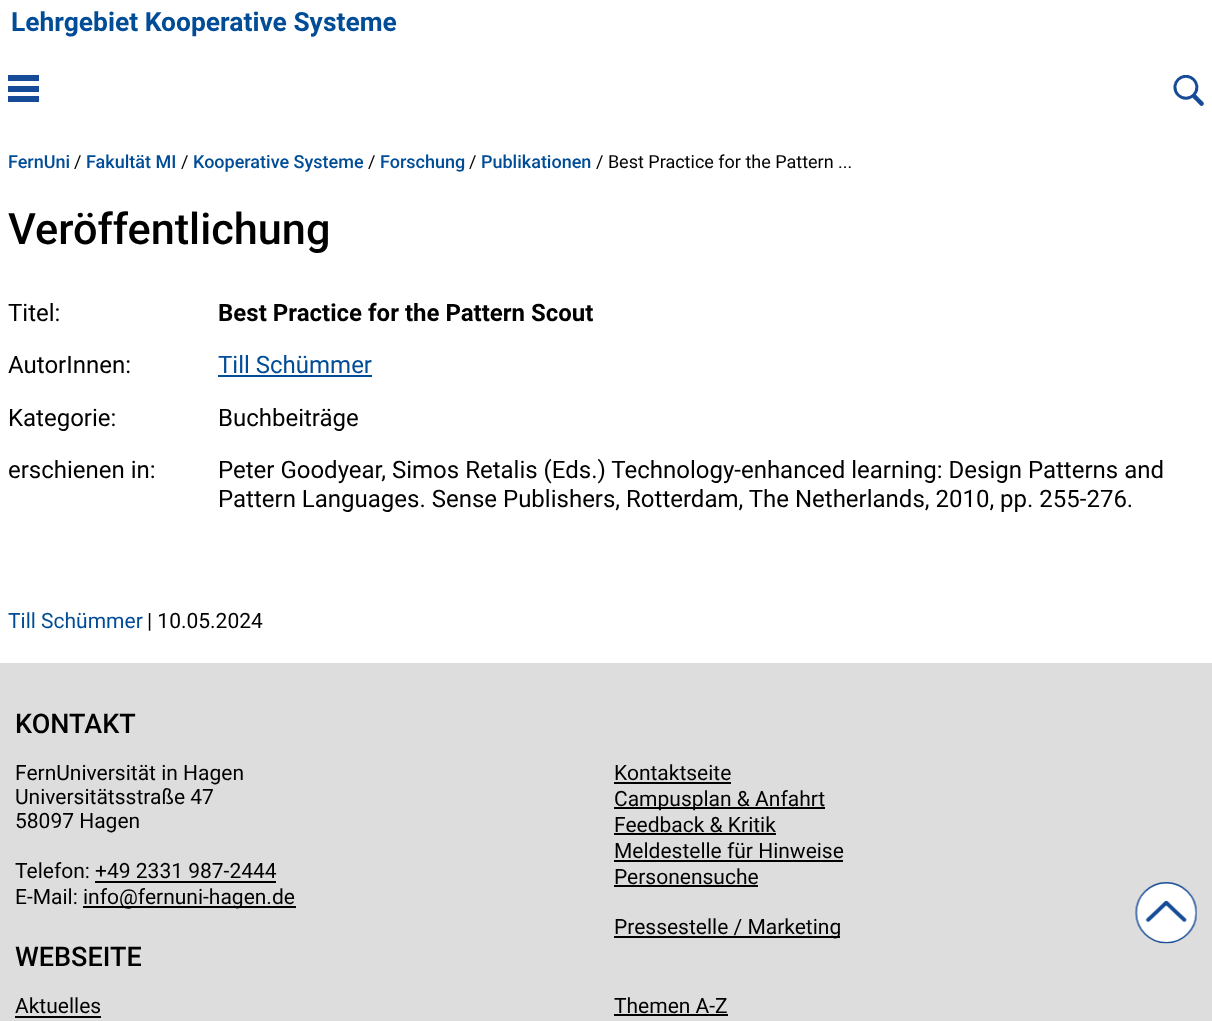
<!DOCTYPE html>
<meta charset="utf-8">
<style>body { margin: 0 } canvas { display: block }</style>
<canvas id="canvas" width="1212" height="1021"></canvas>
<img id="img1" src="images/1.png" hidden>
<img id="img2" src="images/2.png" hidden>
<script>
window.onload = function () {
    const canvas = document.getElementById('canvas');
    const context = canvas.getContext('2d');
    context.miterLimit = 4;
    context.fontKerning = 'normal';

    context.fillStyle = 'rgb(255, 255, 255)';
    context.fillRect(0, 0, 1212, 1021);
    context.fillStyle = 'rgb(22, 76, 151)';
    context.fillRect(8, 75, 31, 6);
    context.fillRect(8, 86, 31, 6);
    context.fillRect(8, 96, 31, 6);
    context.drawImage(document.getElementById('img1'), 1173, 75, 31, 31);
    context.fillStyle = 'rgb(0, 76, 151)';
    context.fillRect(218, 375, 154, 2);
    context.fillStyle = 'rgb(221, 221, 221)';
    context.fillRect(0, 663, 1212, 358);
    context.fillStyle = 'rgb(0, 0, 0)';
    context.fillRect(95, 881, 181, 2);
    context.fillRect(83, 906, 213, 2);
    context.fillRect(614, 782, 117, 2);
    context.fillRect(614, 807, 211, 2);
    context.fillRect(614, 833, 162, 2);
    context.fillRect(614, 860, 229, 2);
    context.fillRect(614, 885, 144, 2);
    context.fillRect(614, 936, 226, 2);
    context.fillRect(15, 1016, 86, 2);
    context.fillRect(614, 1014, 114, 2);
    context.drawImage(document.getElementById('img2'), 1135, 882, 62, 62);
    context.font = 'bold 26.4px Roboto';
    context.fillStyle = 'rgb(0, 76, 151)';
    context.fillText('Lehrgebiet Kooperative Systeme', 11, 31);
    context.font = '500 18px Roboto';
    context.fillText('FernUni', 8, 168);
    context.font = '18px Roboto';
    context.fillStyle = 'rgb(0, 0, 0)';
    context.fillText('/', 74, 168);
    context.font = '500 18px Roboto';
    context.fillStyle = 'rgb(0, 76, 151)';
    context.fillText('Fakultät MI', 86, 168);
    context.font = '18px Roboto';
    context.fillStyle = 'rgb(0, 0, 0)';
    context.fillText('/', 181, 168);
    context.font = '500 18px Roboto';
    context.fillStyle = 'rgb(0, 76, 151)';
    context.fillText('Kooperative Systeme', 193, 168);
    context.font = '18px Roboto';
    context.fillStyle = 'rgb(0, 0, 0)';
    context.fillText('/', 368, 168);
    context.font = '500 18px Roboto';
    context.fillStyle = 'rgb(0, 76, 151)';
    context.fillText('Forschung', 380, 168);
    context.font = '18px Roboto';
    context.fillStyle = 'rgb(0, 0, 0)';
    context.fillText('/', 469, 168);
    context.font = '500 18px Roboto';
    context.fillStyle = 'rgb(0, 76, 151)';
    context.fillText('Publikationen', 481, 168);
    context.font = '18px Roboto';
    context.fillStyle = 'rgb(0, 0, 0)';
    context.fillText('/ Best Practice for the Pattern ...', 596, 168);
    context.font = '500 43.25px Roboto';
    context.fillText('Veröffentlichung', 8, 244);
    context.font = '24px Roboto';
    context.fillText('Titel:', 8, 321);
    context.font = 'bold 24px Roboto';
    context.fillText('Best Practice for the Pattern Scout', 218, 321);
    context.font = '24px Roboto';
    context.fillText('AutorInnen:', 8, 373);
    context.fillStyle = 'rgb(0, 76, 151)';
    context.fillText('Till Schümmer', 218, 373);
    context.fillStyle = 'rgb(0, 0, 0)';
    context.fillText('Kategorie:', 8, 426);
    context.fillText('Buchbeiträge', 218, 426);
    context.fillText('erschienen in:', 8, 478);
    context.fillText('Peter Goodyear, Simos Retalis (Eds.) Technology-enhanced learning: Design Patterns and', 218, 478);
    context.fillText('Pattern Languages. Sense Publishers, Rotterdam, The Netherlands, 2010, pp. 255-276.', 218, 507);
    context.font = '21px Roboto';
    context.fillStyle = 'rgb(0, 76, 151)';
    context.fillText('Till Schümmer', 8, 628);
    context.fillStyle = 'rgb(0, 0, 0)';
    context.fillText('| 10.05.2024', 147, 628);
    context.font = '500 27px Roboto';
    context.fillText('KONTAKT', 15, 733);
    context.font = '21px Roboto';
    context.fillText('FernUniversität in Hagen', 15, 780);
    context.fillText('Universitätsstraße 47', 15, 804);
    context.fillText('58097 Hagen', 15, 828);
    context.fillText('Telefon: +49 2331 987-2444', 15, 878);
    context.fillText('E-Mail: info', 15, 904);
    context.fillText('@fernuni-hagen.de', 119, 904);
    context.fillText('Kontaktseite', 614, 780);
    context.fillText('Campusplan & Anfahrt', 614, 806);
    context.fillText('Feedback & Kritik', 614, 832);
    context.fillText('Meldestelle für Hinweise', 614, 858);
    context.fillText('Personensuche', 614, 884);
    context.fillText('Pressestelle / Marketing', 614, 934);
    context.font = '500 27px Roboto';
    context.fillText('WEBSEITE', 15, 966);
    context.font = '21px Roboto';
    context.fillText('Aktuelles', 15, 1013);
    context.fillText('Themen A-Z', 614, 1013);
};
</script>
